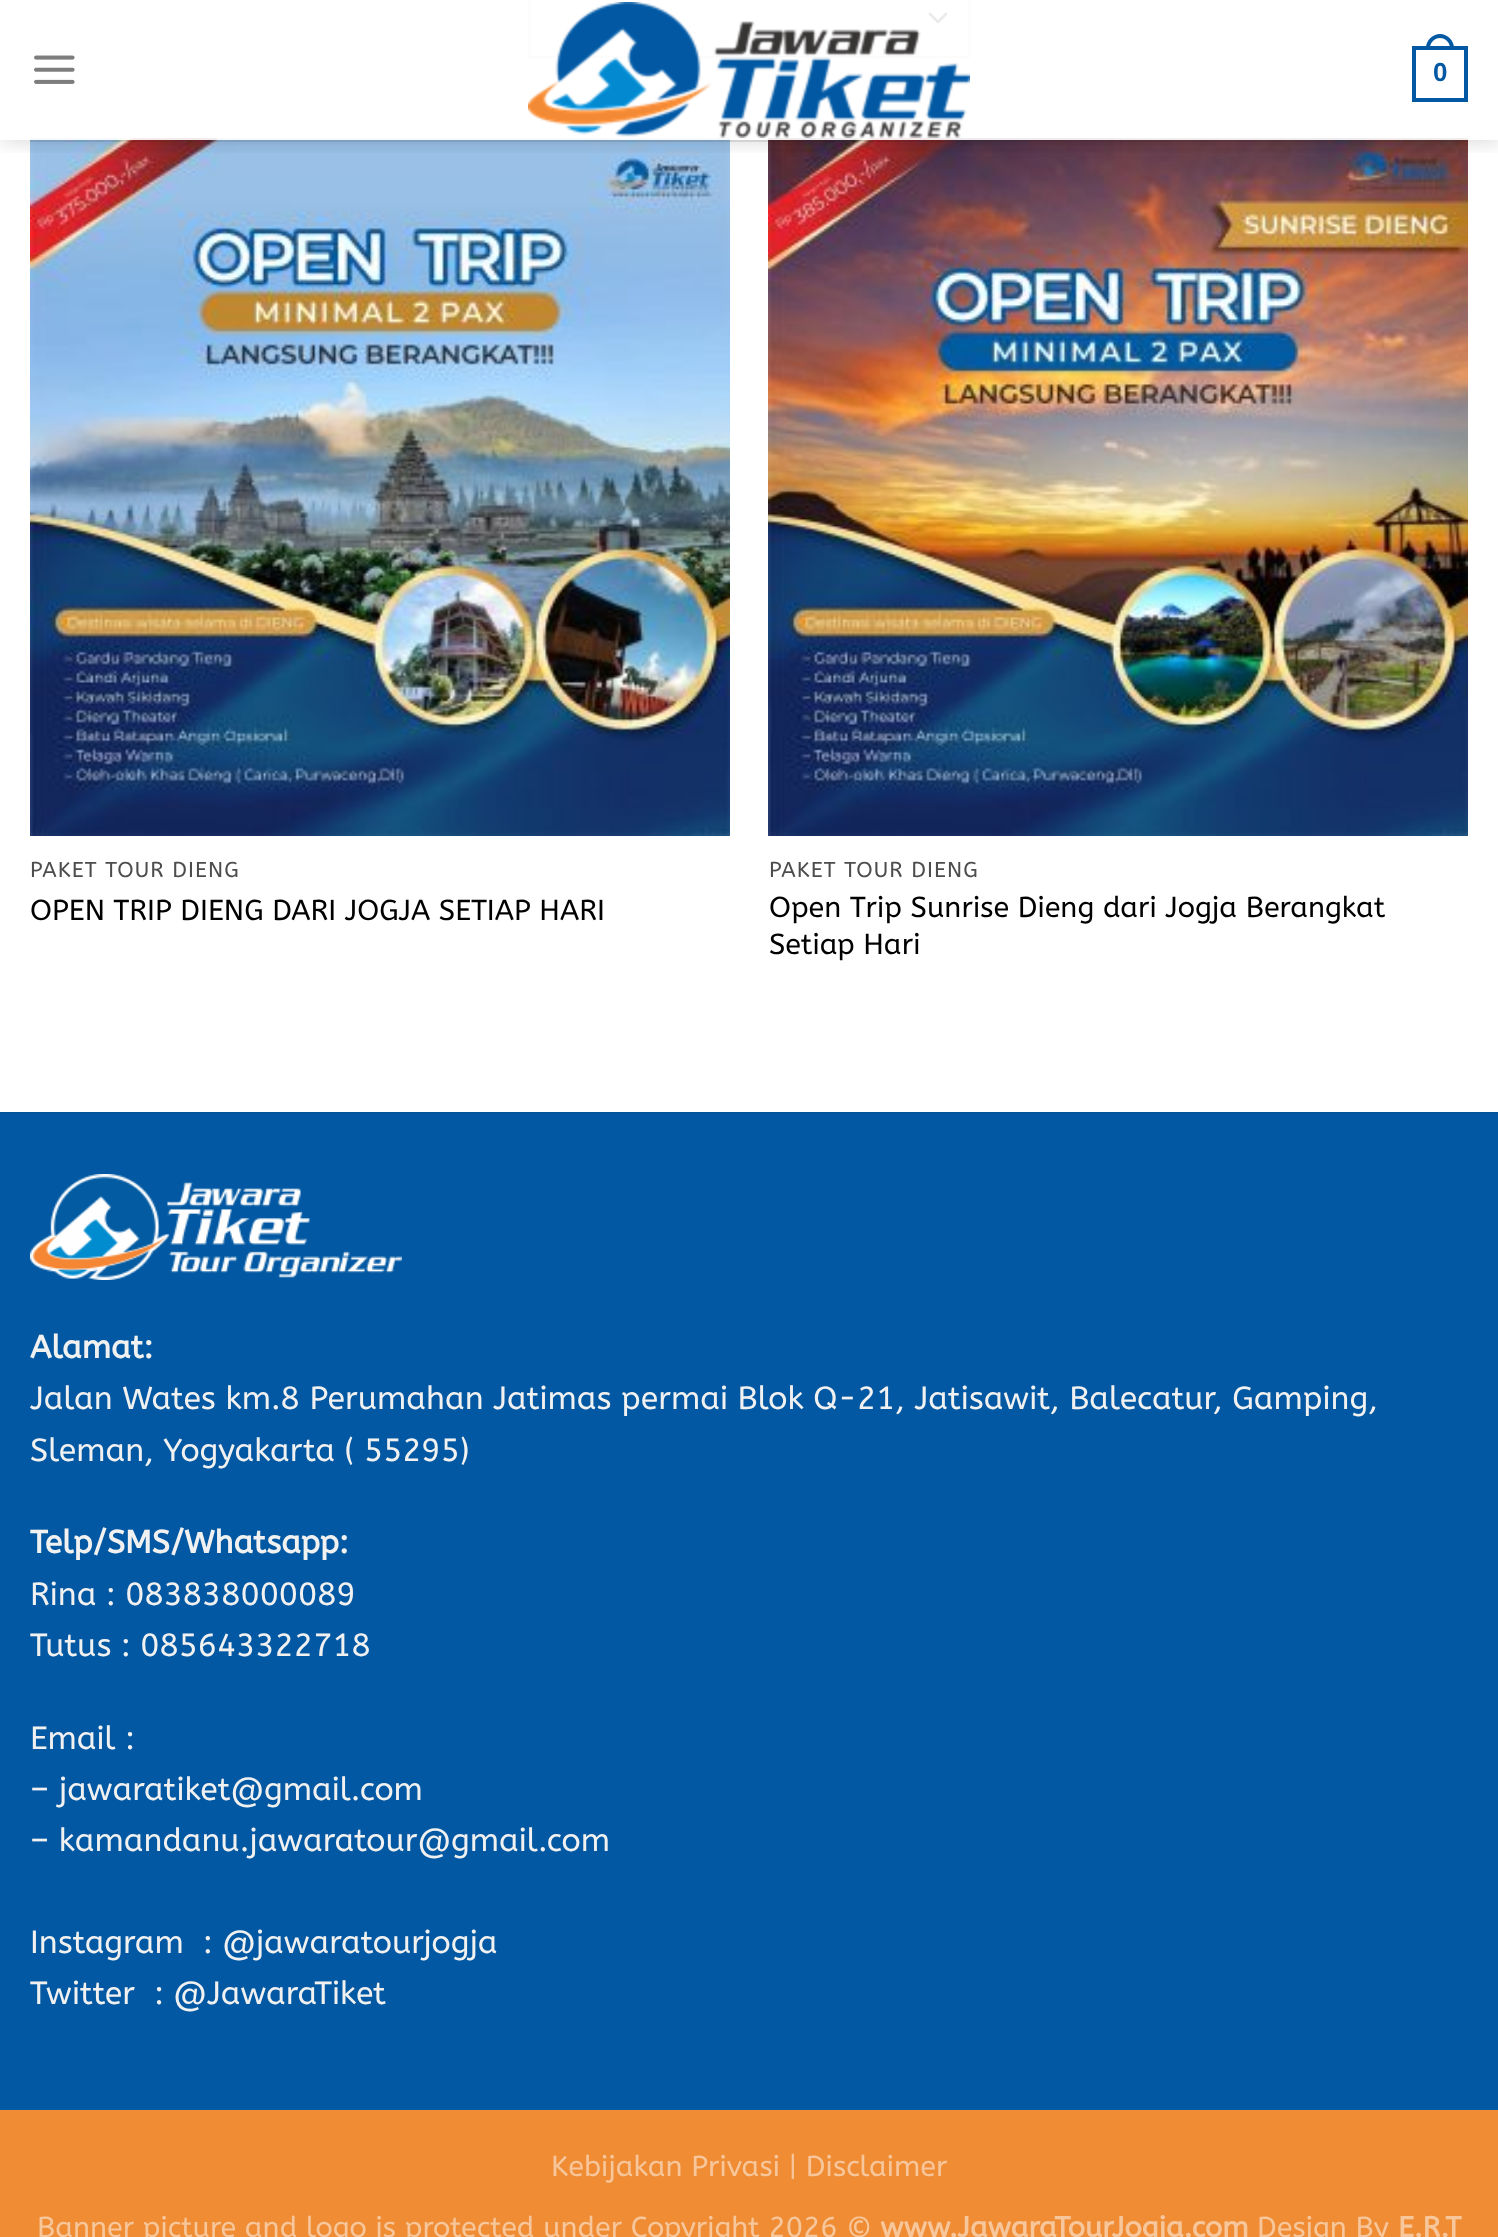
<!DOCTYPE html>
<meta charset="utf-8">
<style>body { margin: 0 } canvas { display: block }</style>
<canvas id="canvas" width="1498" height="2237"></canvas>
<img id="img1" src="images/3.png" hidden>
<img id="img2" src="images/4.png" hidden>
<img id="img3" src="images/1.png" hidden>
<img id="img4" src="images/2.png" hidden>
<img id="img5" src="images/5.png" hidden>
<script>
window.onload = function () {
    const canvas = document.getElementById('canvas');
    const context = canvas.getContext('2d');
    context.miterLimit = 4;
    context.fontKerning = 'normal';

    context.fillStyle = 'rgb(255, 255, 255)';
    context.fillRect(0, 0, 1498, 2237);
    context.beginPath();
    context.moveTo(930, 14);
    context.lineTo(938, 22);
    context.lineTo(946, 14);
    context.strokeStyle = 'rgb(51, 51, 51)';
    context.lineWidth = 2.7;
    context.lineCap = 'round';
    context.lineJoin = 'round';
    context.stroke();
    context.strokeStyle = 'rgb(221, 221, 221)';
    context.lineWidth = 2;
    context.lineJoin = 'miter';
    context.strokeRect(529, -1, 440, 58);
    context.drawImage(document.getElementById('img1'), 30, 138, 700, 698);
    context.drawImage(document.getElementById('img2'), 768, 138, 700, 698);
    context.save();
    context.beginPath();
    context.rect(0, 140, 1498, 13);
    context.clip();
    context.fillStyle = 'rgba(0, 0, 0, 0.15)';
    context.filter = 'blur(10px)';
    context.beginPath();
    context.rect(2, 2, 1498, 140);
    context.fill();
    context.filter = 'none';
    context.restore();
    context.fillStyle = 'rgba(255, 255, 255, 0.9)';
    context.fillRect(30, 0, 1438, 140);
    context.drawImage(document.getElementById('img3'), 34, 55, 41, 29);
    context.drawImage(document.getElementById('img4'), 528, 2, 442, 136);
    context.strokeStyle = 'rgb(2, 88, 162)';
    context.lineWidth = 4;
    context.strokeRect(1414, 48, 52, 52);
    context.fillStyle = 'rgb(2, 88, 162)';
    context.beginPath();
    context.moveTo(1440, 34);
    context.bezierCurveTo(1447.5, 34, 1454, 40.5, 1454, 48);
    context.lineTo(1454, 50);
    context.lineTo(1426, 50);
    context.lineTo(1426, 48);
    context.bezierCurveTo(1426, 40.5, 1432.5, 34, 1440, 34);
    context.closePath();
    context.moveTo(1440, 38);
    context.bezierCurveTo(1445.5, 38, 1450, 42.5, 1450, 48);
    context.lineTo(1450, 50);
    context.lineTo(1430, 50);
    context.lineTo(1430, 48);
    context.bezierCurveTo(1430, 42.5, 1434.5, 38, 1440, 38);
    context.closePath();
    context.fill('evenodd');
    context.fillStyle = 'rgba(0, 0, 0, 0.1)';
    context.fillRect(30, 140, 1438, 2);
    context.fillStyle = 'rgb(2, 88, 162)';
    context.fillRect(0, 1114, 1498, 996);
    context.fillStyle = 'rgb(2, 84, 154)';
    context.fillRect(0, 1112, 1498, 2);
    context.drawImage(document.getElementById('img5'), 30, 1174, 372, 106);
    context.fillStyle = 'rgb(239, 140, 52)';
    context.fillRect(0, 2110, 1498, 127);
    context.font = 'bold 26px Liberation Sans';
    context.fillStyle = 'rgb(2, 88, 162)';
    context.fillText('0', 1433, 81);
    context.letterSpacing = '1.1px';
    context.font = '21.5px ABeeZee';
    context.fillStyle = 'rgb(77, 77, 77)';
    context.fillText('PAKET TOUR DIENG', 30, 877);
    context.letterSpacing = '0px';
    context.font = '28.8px ABeeZee';
    context.fillStyle = 'rgb(0, 0, 0)';
    context.fillText('OPEN TRIP DIENG DARI JOGJA SETIAP HARI', 30, 920);
    context.letterSpacing = '1.1px';
    context.font = '21.5px ABeeZee';
    context.fillStyle = 'rgb(77, 77, 77)';
    context.fillText('PAKET TOUR DIENG', 769, 877);
    context.letterSpacing = '0px';
    context.font = '28.8px ABeeZee';
    context.fillStyle = 'rgb(0, 0, 0)';
    context.fillText('Open Trip Sunrise Dieng dari Jogja Berangkat', 769, 917);
    context.fillText('Setiap Hari', 769, 954);
    context.font = 'bold 32px ABeeZee';
    context.fillStyle = 'rgb(241, 241, 241)';
    context.fillText('Alamat:', 30, 1358);
    context.font = '32px ABeeZee';
    context.fillText('Jalan Wates km.8 Perumahan Jatimas permai Blok Q-21, Jatisawit, Balecatur, Gamping,', 30, 1409);
    context.fillText('Sleman, Yogyakarta ( 55295)', 30, 1461);
    context.font = 'bold 32px ABeeZee';
    context.fillText('Telp/SMS/Whatsapp:', 30, 1553);
    context.font = '32px ABeeZee';
    context.fillText('Rina : 083838000089', 30, 1605);
    context.fillText('Tutus : 085643322718', 30, 1656);
    context.fillText('Email :', 30, 1749);
    context.fillText('– jawaratiket@gmail.com', 30, 1800);
    context.fillText('– kamandanu.jawaratour@gmail.com', 30, 1851);
    context.fillText('Instagram  : @jawaratourjogja', 30, 1953);
    context.fillText('Twitter  : @JawaraTiket', 30, 2004);
    context.font = '28.8px ABeeZee';
    context.fillStyle = 'rgb(247, 198, 154)';
    context.fillText('Kebijakan Privasi | Disclaimer', 551, 2176);
    context.fillText('Banner picture and logo is protected under Copyright 2026 ©', 37, 2237);
    context.font = 'bold 28.8px ABeeZee';
    context.fillText('www.JawaraTourJogja.com', 880, 2237);
    context.font = '28.8px ABeeZee';
    context.fillText('Design By', 1257, 2237);
    context.font = 'bold 28.8px ABeeZee';
    context.fillText('E.R.T', 1398, 2237);
};
</script>
